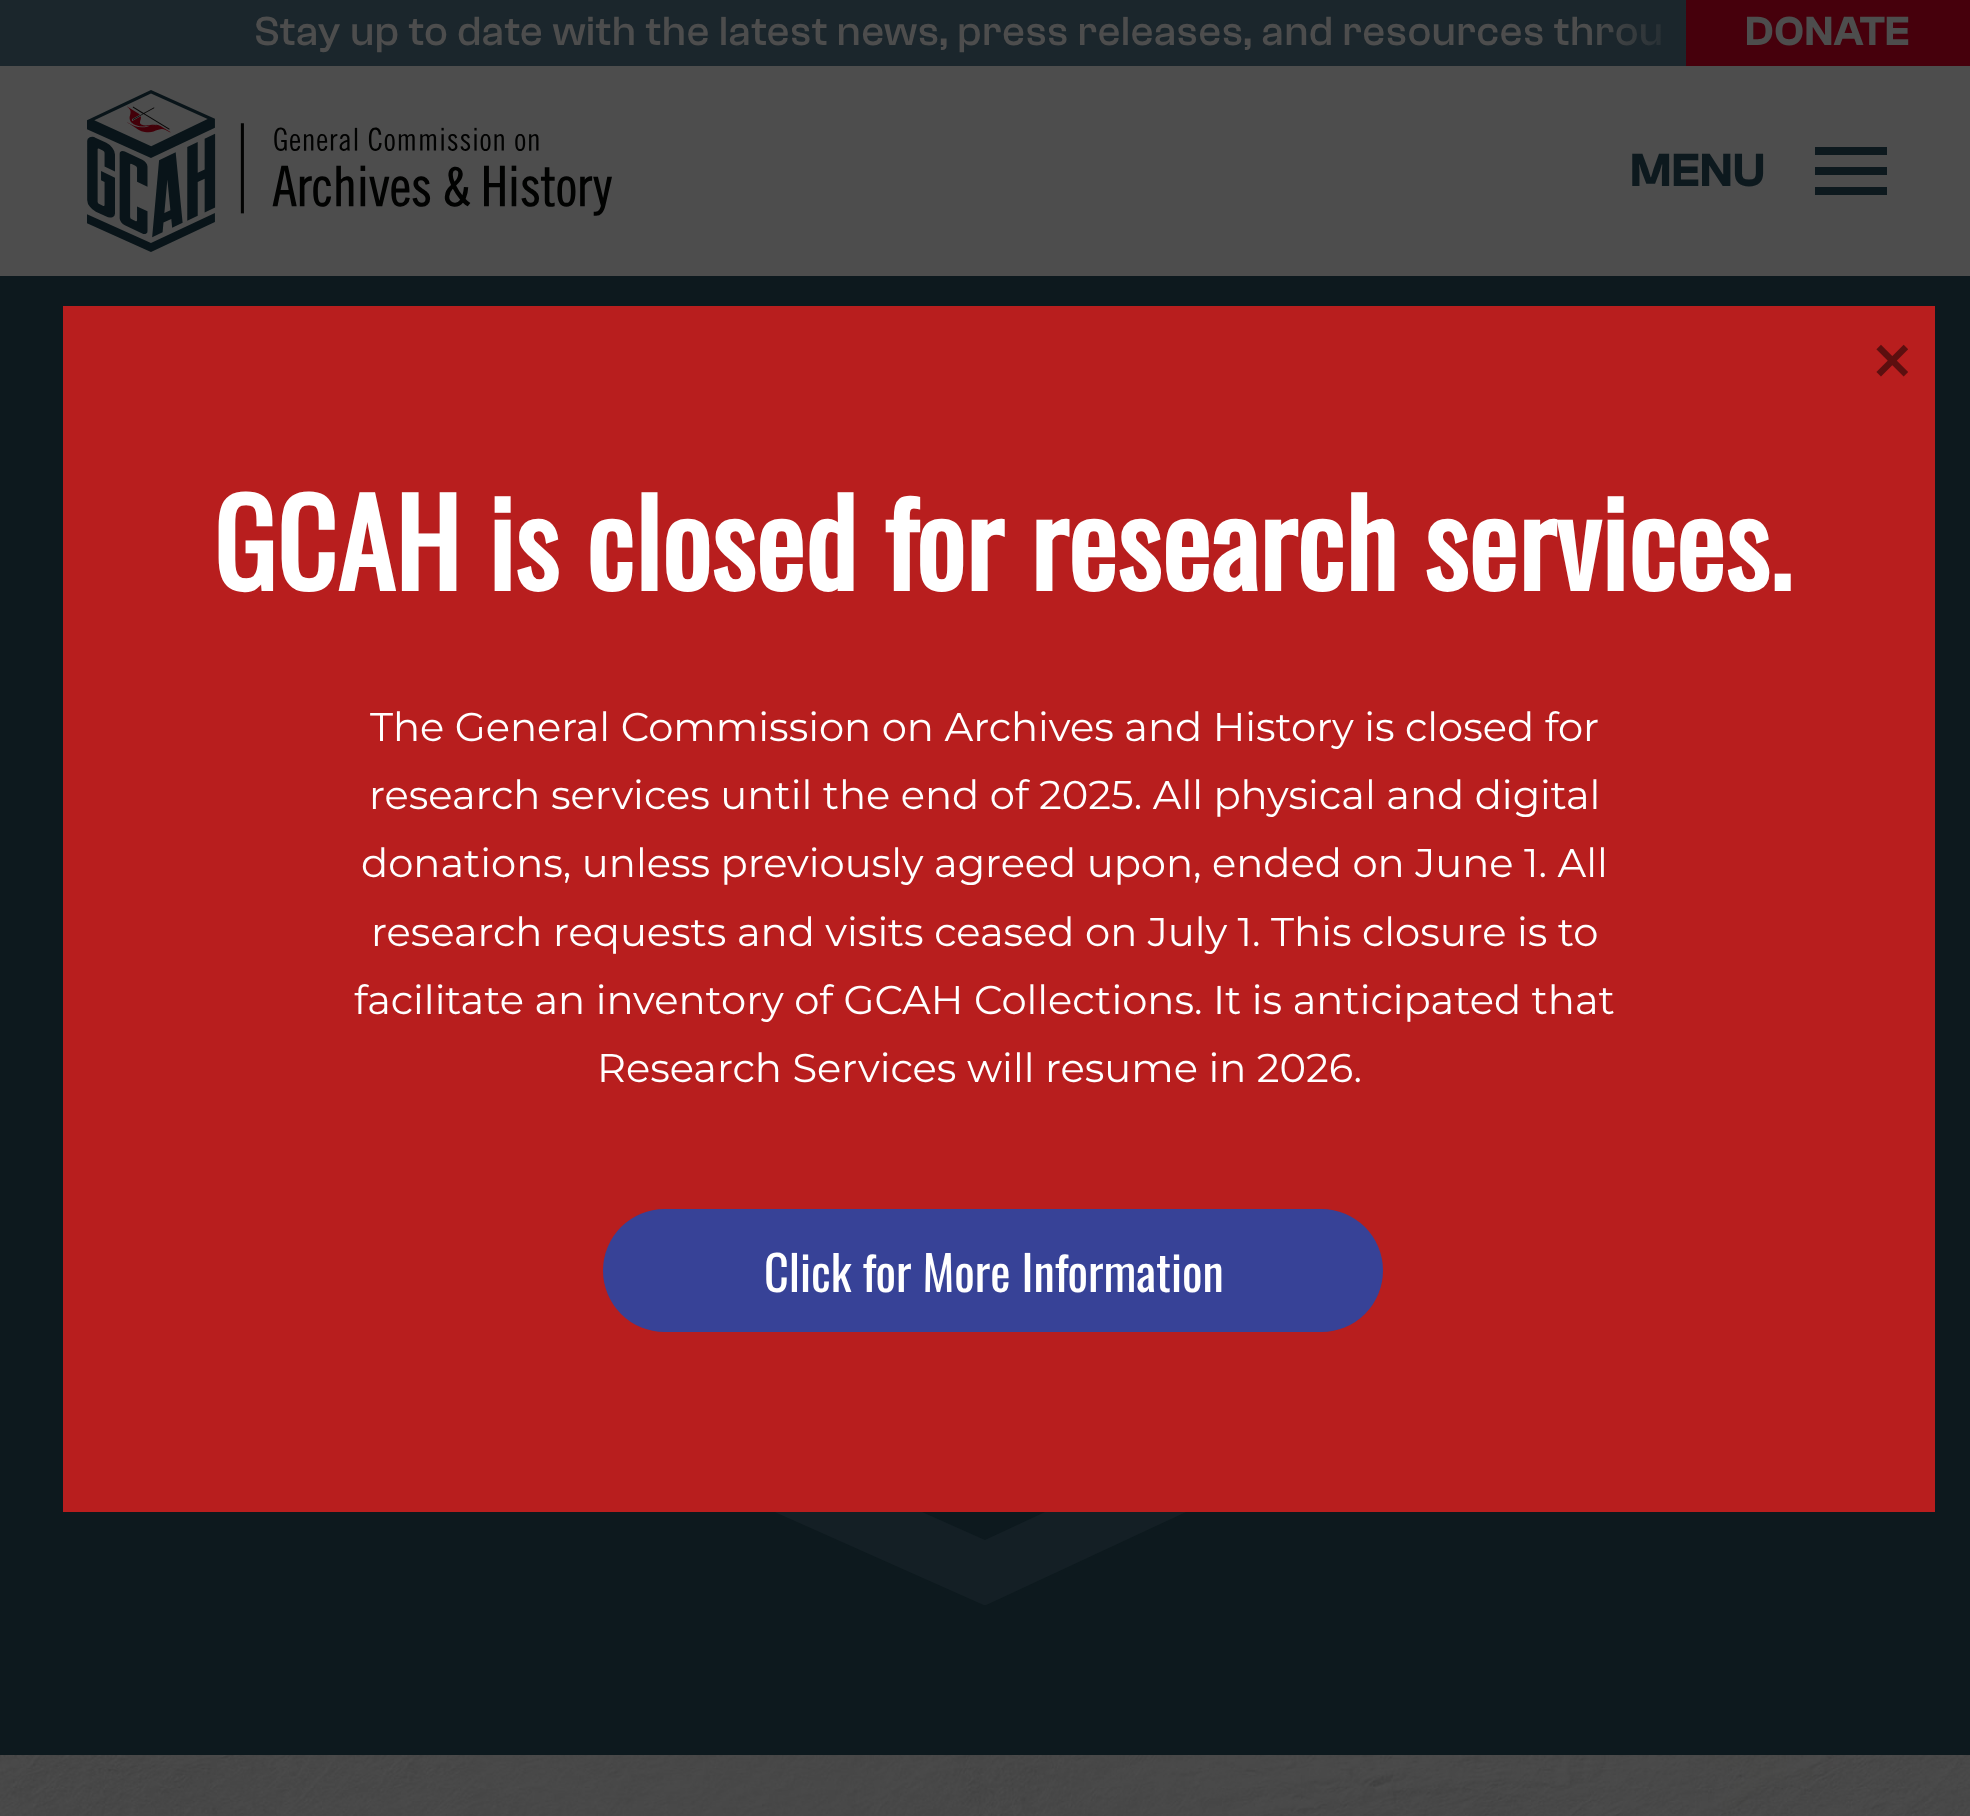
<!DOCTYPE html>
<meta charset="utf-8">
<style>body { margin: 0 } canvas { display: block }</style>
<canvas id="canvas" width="1970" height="1816"></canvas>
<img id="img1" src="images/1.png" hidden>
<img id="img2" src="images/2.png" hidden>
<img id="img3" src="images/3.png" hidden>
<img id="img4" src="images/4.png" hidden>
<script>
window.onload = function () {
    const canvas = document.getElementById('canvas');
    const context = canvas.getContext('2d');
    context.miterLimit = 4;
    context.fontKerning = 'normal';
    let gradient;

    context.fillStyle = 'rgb(77, 77, 77)';
    context.fillRect(0, 0, 1970, 1816);
    context.fillStyle = 'rgb(27, 38, 44)';
    context.fillRect(0, 0, 1685, 66);
    context.fillStyle = 'rgb(70, 0, 12)';
    context.fillRect(1686, 0, 284, 66);
    context.drawImage(document.getElementById('img1'), 87, 90, 525, 162);
    context.fillStyle = 'rgb(13, 25, 30)';
    context.beginPath();
    context.moveTo(1815, 195);
    context.lineTo(1887, 195);
    context.lineTo(1887, 187);
    context.lineTo(1815, 187);
    context.closePath();
    context.moveTo(1815, 175);
    context.lineTo(1887, 175);
    context.lineTo(1887, 167);
    context.lineTo(1815, 167);
    context.closePath();
    context.moveTo(1815, 147);
    context.lineTo(1815, 155);
    context.lineTo(1887, 155);
    context.lineTo(1887, 147);
    context.closePath();
    context.fill();
    context.fillRect(0, 276, 1970, 1479);
    context.drawImage(document.getElementById('img2'), 775, 1512, 411, 93);
    context.drawImage(document.getElementById('img3'), 0, 1755, 1970, 61);
    context.fillStyle = 'rgb(184, 30, 30)';
    context.fillRect(63, 306, 1872, 1206);
    context.drawImage(document.getElementById('img4'), 1876, 344, 32, 33);
    context.fillStyle = 'rgb(55, 66, 151)';
    context.beginPath();
    context.roundRect(603, 1209, 780, 123, 61.5);
    context.fill();
    context.letterSpacing = '0.85px';
    context.font = '500 42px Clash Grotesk';
    context.fillStyle = 'rgb(77, 77, 77)';
    context.fillText('Stay up to date with the latest news, press releases, and resources throu', 254, 45);
    gradient = context.createLinearGradient(1590, 33, 1686, 33);
    gradient.addColorStop(0, 'rgba(27, 38, 44, 0)');
    gradient.addColorStop(1, 'rgb(27, 38, 44)');
    context.fillStyle = gradient;
    context.fillRect(1596, 0, 90, 66);
    context.font = '600 42px Clash Grotesk';
    context.fillStyle = 'rgb(77, 77, 77)';
    context.fillText('DONATE', 1745, 45);
    context.letterSpacing = '0px';
    context.font = '600 48px Clash Grotesk';
    context.fillStyle = 'rgb(13, 25, 30)';
    context.fillText('MENU', 1630, 186);
    context.font = 'bold 117.75px Oswald';
    context.fillStyle = 'rgb(255, 255, 255)';
    context.fillText('GCAH is closed for research services.', 213, 591);
    context.font = '100 40.1px Montserrat';
    context.fillText('The General Commission on Archives and History is closed for', 370, 741);
    context.fillText('research services until the end of 2025. All physical and digital', 369, 809);
    context.fillText('donations, unless previously agreed upon, ended on June 1. All', 361, 877);
    context.fillText('research requests and visits ceased on July 1. This closure is to', 371, 946);
    context.fillText('facilitate an inventory of GCAH Collections. It is anticipated that', 354, 1014);
    context.fillText('Research Services will resume in 2026.', 597, 1082);
    context.font = '48.25px Oswald';
    context.fillText('Click for More Information', 764, 1292);
};
</script>
